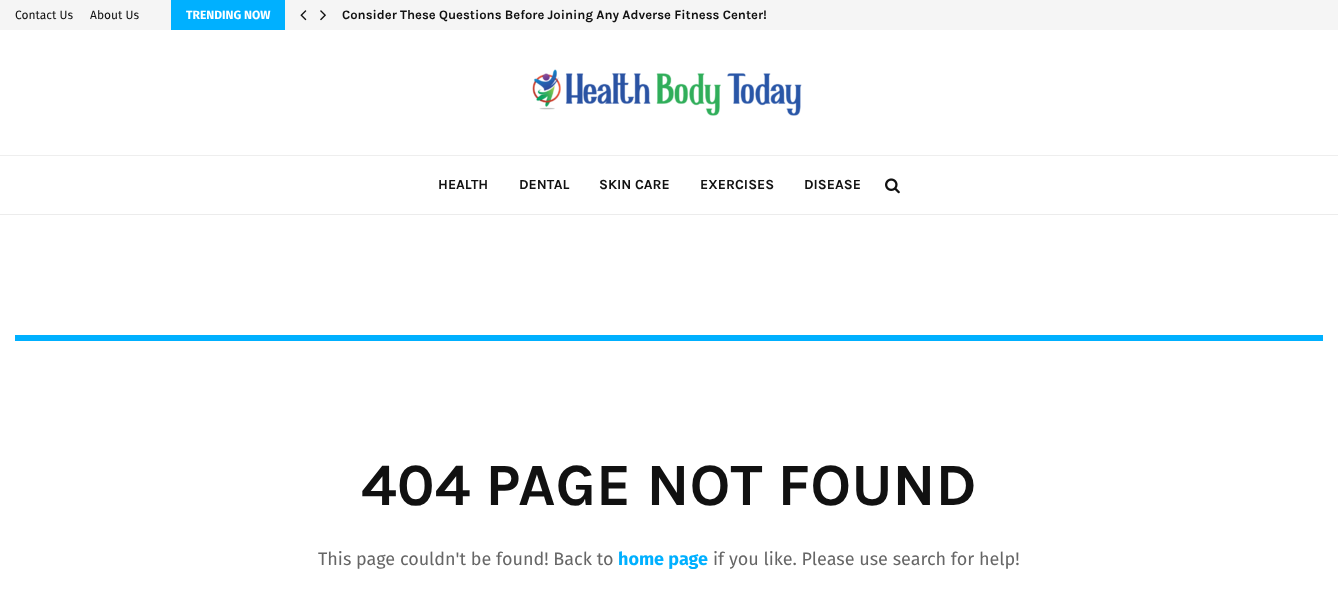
<!DOCTYPE html>
<meta charset="utf-8">
<style>body { margin: 0 } canvas { display: block }</style>
<canvas id="canvas" width="1338" height="603"></canvas>
<img id="img1" src="images/1.png" hidden>
<img id="img2" src="images/2.png" hidden>
<img id="img3" src="images/3.png" hidden>
<img id="img4" src="images/4.png" hidden>
<script>
window.onload = function () {
    const canvas = document.getElementById('canvas');
    const context = canvas.getContext('2d');
    context.miterLimit = 4;
    context.fontKerning = 'normal';

    context.fillStyle = 'rgb(255, 255, 255)';
    context.fillRect(0, 0, 1338, 603);
    context.fillStyle = 'rgb(245, 245, 245)';
    context.fillRect(0, 0, 1338, 30);
    context.fillStyle = 'rgb(0, 176, 255)';
    context.fillRect(171, 0, 114, 30);
    context.drawImage(document.getElementById('img1'), 300, 10, 7, 11);
    context.drawImage(document.getElementById('img2'), 320, 10, 6, 11);
    context.drawImage(document.getElementById('img3'), 532, 69, 270, 47);
    context.fillStyle = 'rgb(236, 236, 236)';
    context.fillRect(0, 214, 1338, 1);
    context.fillStyle = 'rgb(238, 238, 238)';
    context.fillRect(0, 155, 1338, 1);
    context.drawImage(document.getElementById('img4'), 885, 178, 15, 16);
    context.fillStyle = 'rgb(0, 176, 255)';
    context.fillRect(15, 335, 1308, 6);
    context.font = '12px Fira Sans';
    context.fillStyle = 'rgb(17, 17, 17)';
    context.fillText('Contact Us', 15, 19);
    context.fillText('About Us', 90, 19);
    context.font = 'bold 12px Fira Sans';
    context.fillStyle = 'rgb(255, 255, 255)';
    context.fillText('TRENDING NOW', 186, 19);
    context.font = 'bold 13px Karla';
    context.fillStyle = 'rgb(17, 17, 17)';
    context.fillText('Consider These Questions Before Joining Any Adverse Fitness Center!', 342, 19);
    context.font = 'bold 14px Karla';
    context.fillText('HEALTH', 438, 189);
    context.fillText('DENTAL', 519, 189);
    context.fillText('SKIN CARE', 599, 189);
    context.fillText('EXERCISES', 700, 189);
    context.fillText('DISEASE', 804, 189);
    context.font = 'bold 60px Karla';
    context.fillText('404 PAGE NOT FOUND', 361, 505);
    context.font = '18px Fira Sans';
    context.fillStyle = 'rgb(102, 102, 102)';
    context.fillText('This page couldn\'t be found! Back to', 318, 565);
    context.font = 'bold 18px Fira Sans';
    context.fillStyle = 'rgb(0, 176, 255)';
    context.fillText('home page', 618, 565);
    context.font = '18px Fira Sans';
    context.fillStyle = 'rgb(102, 102, 102)';
    context.fillText('if you like. Please use search for help!', 713, 565);
};
</script>
